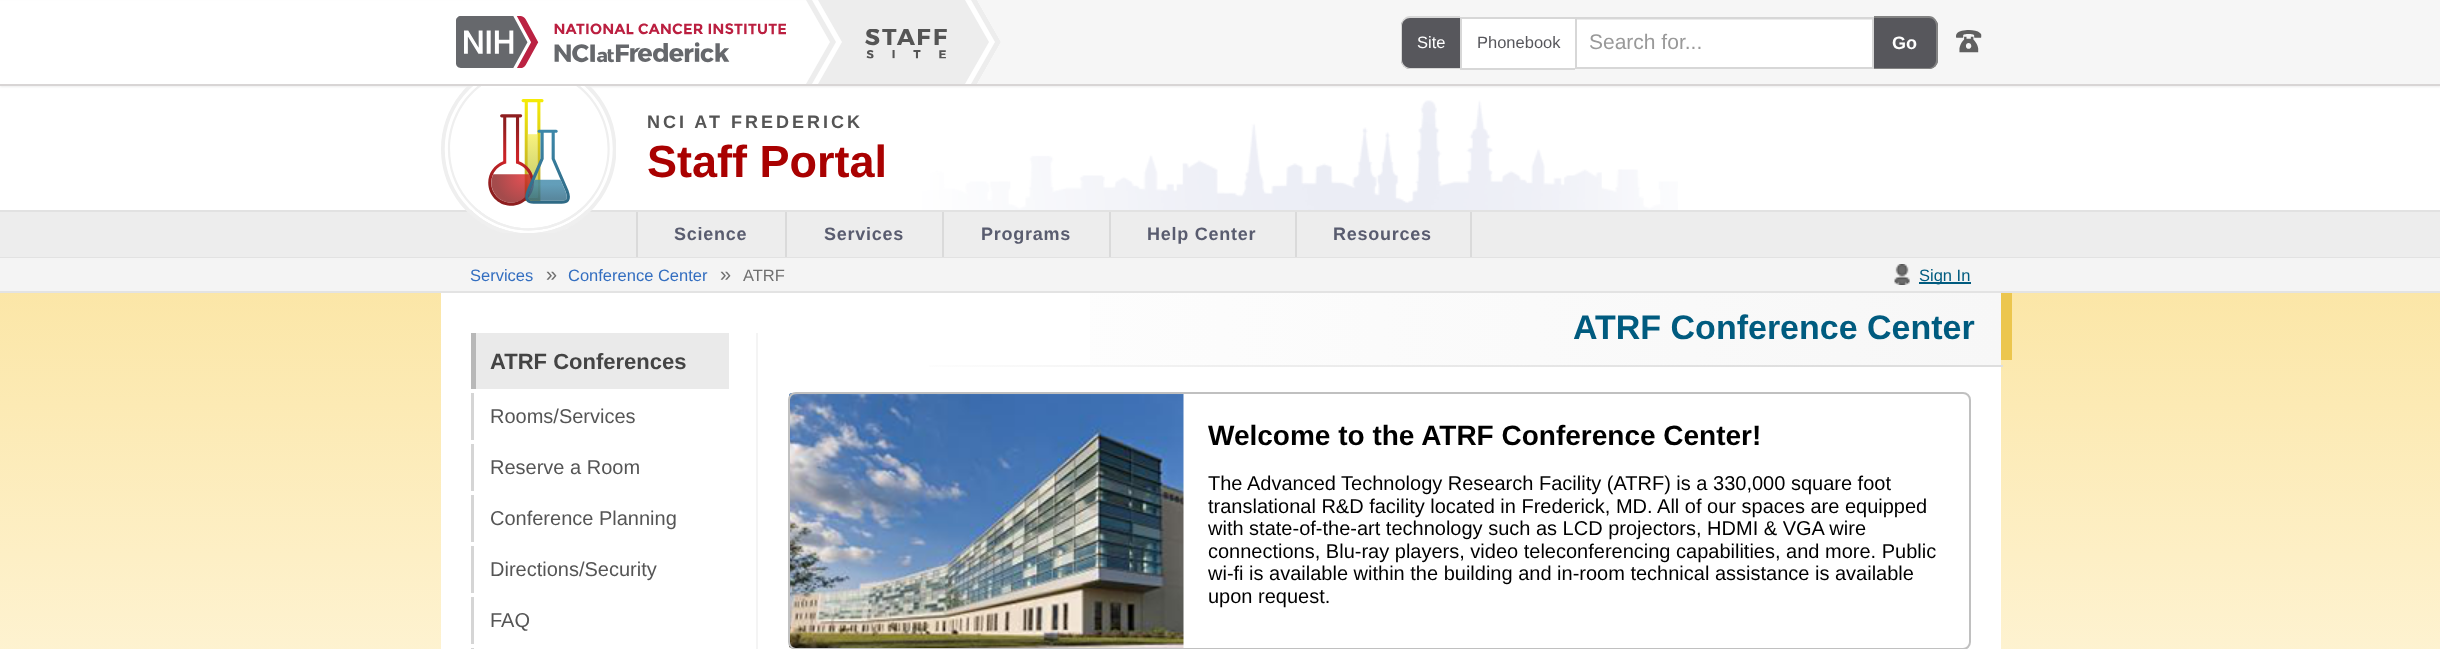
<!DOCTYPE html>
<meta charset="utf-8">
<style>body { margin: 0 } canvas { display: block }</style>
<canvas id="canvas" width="2440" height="649"></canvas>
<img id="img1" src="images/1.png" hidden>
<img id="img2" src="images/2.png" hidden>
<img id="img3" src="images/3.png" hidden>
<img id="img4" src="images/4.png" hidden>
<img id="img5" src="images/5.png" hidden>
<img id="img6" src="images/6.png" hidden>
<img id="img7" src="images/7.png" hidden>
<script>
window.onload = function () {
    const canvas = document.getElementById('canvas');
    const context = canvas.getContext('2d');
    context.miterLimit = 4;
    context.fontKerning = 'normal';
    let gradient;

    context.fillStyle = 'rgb(255, 255, 255)';
    context.fillRect(0, 0, 2440, 649);
    context.fillStyle = 'rgba(0, 0, 0, 0.07)';
    context.filter = 'blur(1px)';
    context.beginPath();
    context.rect(0, 2, 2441, 85);
    context.fill();
    context.filter = 'none';
    context.fillStyle = 'rgb(255, 255, 255)';
    context.fillRect(0, 1, 1001, 83);
    context.fillStyle = 'rgb(246, 246, 246)';
    context.fillRect(1611, 0, 829, 84);
    context.fillStyle = 'rgb(216, 213, 213)';
    context.fillRect(0, 84, 2440, 2);
    context.fillStyle = 'rgb(237, 237, 237)';
    context.beginPath();
    context.moveTo(965, 0);
    context.lineTo(818, 0);
    context.lineTo(842, 42);
    context.lineTo(818, 84);
    context.lineTo(965, 84);
    context.lineTo(989, 42);
    context.closePath();
    context.fill('evenodd');
    context.beginPath();
    context.moveTo(812, 0);
    context.lineTo(806, 0);
    context.lineTo(830, 42);
    context.lineTo(806, 84);
    context.lineTo(812, 84);
    context.lineTo(836, 42);
    context.closePath();
    context.fill();
    context.beginPath();
    context.moveTo(977, 0);
    context.lineTo(971, 0);
    context.lineTo(995, 42);
    context.lineTo(971, 84);
    context.lineTo(977, 84);
    context.lineTo(1001, 42);
    context.closePath();
    context.fill();
    context.fillStyle = 'rgb(246, 246, 246)';
    context.beginPath();
    context.moveTo(977, 0);
    context.lineTo(1001, 42);
    context.lineTo(977, 84);
    context.lineTo(1611, 84);
    context.lineTo(1611, 0);
    context.closePath();
    context.fill();
    context.drawImage(document.getElementById('img1'), 456, 16, 330, 52);
    context.drawImage(document.getElementById('img2'), 865, 29, 82, 30);
    context.fillStyle = 'rgb(87, 87, 92)';
    context.beginPath();
    context.roundRect(1401, 17, 59, 52, [9, 0, 0, 9]);
    context.fill();
    context.fillStyle = 'rgb(215, 215, 215)';
    context.beginPath();
    context.moveTo(1410, 16);
    context.lineTo(1460, 16);
    context.lineTo(1460, 69);
    context.lineTo(1410, 69);
    context.bezierCurveTo(1405, 69, 1401, 65, 1401, 60);
    context.lineTo(1401, 26);
    context.bezierCurveTo(1401, 21, 1405, 16, 1410, 16);
    context.closePath();
    context.moveTo(1410, 18);
    context.lineTo(1460, 18);
    context.lineTo(1460, 68);
    context.lineTo(1410, 68);
    context.bezierCurveTo(1406, 68, 1402, 64, 1402, 60);
    context.lineTo(1402, 26);
    context.bezierCurveTo(1402, 21, 1406, 18, 1410, 18);
    context.closePath();
    context.fill('evenodd');
    context.fillStyle = 'rgb(255, 255, 255)';
    context.fillRect(1462, 19, 113, 49);
    context.fillStyle = 'rgb(215, 215, 215)';
    context.fillRect(1460, 17, 115, 2);
    context.fillRect(1460, 68, 115, 2);
    context.fillRect(1460, 17, 2, 52);
    context.fillStyle = 'rgb(255, 255, 255)';
    context.fillRect(1577, 20, 295, 47);
    context.fillStyle = 'rgb(236, 236, 236)';
    context.fillRect(1577, 19, 295, 1);
    context.strokeStyle = 'rgb(215, 215, 215)';
    context.lineWidth = 2;
    context.strokeRect(1576, 18, 297, 50);
    context.fillStyle = 'rgb(87, 87, 92)';
    context.beginPath();
    context.roundRect(1874, 17, 64, 52, [0, 9, 9, 0]);
    context.fill();
    context.fillStyle = 'rgb(131, 131, 131)';
    context.beginPath();
    context.moveTo(1874, 16);
    context.lineTo(1929, 16);
    context.bezierCurveTo(1934, 16, 1938, 21, 1938, 26);
    context.lineTo(1938, 60);
    context.bezierCurveTo(1938, 65, 1934, 69, 1929, 69);
    context.lineTo(1874, 69);
    context.closePath();
    context.moveTo(1874, 18);
    context.lineTo(1929, 18);
    context.bezierCurveTo(1933, 18, 1936, 21, 1936, 26);
    context.lineTo(1936, 60);
    context.bezierCurveTo(1936, 64, 1933, 68, 1929, 68);
    context.lineTo(1874, 68);
    context.closePath();
    context.fill('evenodd');
    context.drawImage(document.getElementById('img3'), 1956, 30, 26, 23);
    context.drawImage(document.getElementById('img4'), 582, 100, 1096, 110);
    context.fillStyle = 'rgb(237, 237, 237)';
    context.fillRect(0, 212, 2440, 45);
    context.fillStyle = 'rgb(226, 226, 226)';
    context.fillRect(0, 210, 2440, 2);
    context.drawImage(document.getElementById('img5'), 441, 86, 175, 147);
    context.fillRect(0, 257, 2440, 1);
    context.fillStyle = 'rgb(218, 218, 218)';
    context.fillRect(785, 212, 2, 45);
    context.fillRect(636, 212, 2, 45);
    context.fillRect(942, 212, 2, 45);
    context.fillRect(1109, 212, 2, 45);
    context.fillRect(1295, 212, 2, 45);
    context.fillRect(1470, 212, 2, 45);
    gradient = context.createLinearGradient(1220, 258, 1220, 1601);
    gradient.addColorStop(0, 'rgb(251, 229, 163)');
    gradient.addColorStop(0.44, 'rgb(255, 249, 231)');
    gradient.addColorStop(1, 'rgb(255, 249, 231)');
    context.fillStyle = gradient;
    context.fillRect(0, 293, 2440, 356);
    context.fillStyle = 'rgb(244, 244, 244)';
    context.fillRect(0, 258, 2440, 33);
    context.fillStyle = 'rgb(227, 227, 227)';
    context.fillRect(0, 291, 2440, 2);
    context.drawImage(document.getElementById('img6'), 1894, 264, 16, 21);
    context.fillStyle = 'rgb(0, 91, 127)';
    context.fillRect(1919, 282, 52, 2);
    context.fillStyle = 'rgb(255, 255, 255)';
    context.fillRect(441, 293, 1560, 356);
    gradient = context.createLinearGradient(756, 329, 2001, 328);
    gradient.addColorStop(0, 'rgba(247, 247, 247, 0)');
    gradient.addColorStop(1, 'rgb(247, 247, 247)');
    context.fillStyle = gradient;
    context.fillRect(1090, 293, 911, 72);
    context.fillStyle = 'rgb(236, 198, 78)';
    context.fillRect(2001, 293, 11, 67);
    gradient = context.createLinearGradient(882, 365, 2003, 365);
    gradient.addColorStop(0, 'rgba(222, 222, 222, 0)');
    gradient.addColorStop(0.29, 'rgba(222, 222, 222, 0.47)');
    gradient.addColorStop(0.83, 'rgba(222, 222, 222, 0.99)');
    gradient.addColorStop(0.84, 'rgb(222, 222, 222)');
    gradient.addColorStop(1, 'rgb(222, 222, 222)');
    context.fillStyle = gradient;
    context.fillRect(929, 365, 1074, 2);
    context.fillStyle = 'rgb(244, 244, 244)';
    context.fillRect(756, 333, 2, 316);
    context.fillStyle = 'rgb(234, 234, 234)';
    context.fillRect(476, 333, 253, 56);
    context.fillStyle = 'rgb(184, 184, 184)';
    context.fillRect(471, 333, 5, 56);
    context.fillStyle = 'rgb(213, 213, 213)';
    context.fillRect(471, 393, 3, 47);
    context.fillRect(471, 444, 3, 47);
    context.fillRect(471, 495, 3, 47);
    context.fillRect(471, 546, 3, 47);
    context.fillRect(471, 597, 3, 47);
    context.fillRect(471, 648, 3, 1);
    context.drawImage(document.getElementById('img7'), 789, 393, 395, 255);
    context.beginPath();
    context.roundRect(789, 393, 1181, 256, 7);
    context.strokeStyle = 'rgb(192, 192, 192)';
    context.stroke();
    context.font = '16.5px Liberation Sans';
    context.fillStyle = 'rgb(255, 255, 255)';
    context.fillText('Site', 1417, 48);
    context.fillStyle = 'rgb(87, 87, 92)';
    context.fillText('Phonebook', 1477, 48);
    context.font = '21px Liberation Sans';
    context.fillStyle = 'rgb(153, 153, 153)';
    context.fillText('Search for...', 1589, 49);
    context.font = 'bold 18px Liberation Sans';
    context.fillStyle = 'rgb(255, 255, 255)';
    context.fillText('Go', 1892, 49);
    context.letterSpacing = '3px';
    context.fillStyle = 'rgb(85, 85, 85)';
    context.fillText('NCI AT FREDERICK', 647, 128);
    context.letterSpacing = '0px';
    context.font = 'bold 45px Liberation Sans';
    context.fillStyle = 'rgb(169, 1, 1)';
    context.fillText('Staff Portal', 647, 177);
    context.letterSpacing = '0.75px';
    context.font = 'bold 18px Liberation Sans';
    context.fillStyle = 'rgb(89, 92, 111)';
    context.fillText('Science', 674, 240);
    context.fillText('Services', 824, 240);
    context.fillText('Programs', 981, 240);
    context.fillText('Help Center', 1147, 240);
    context.fillText('Resources', 1333, 240);
    context.letterSpacing = '0px';
    context.font = '16.5px Liberation Sans';
    context.fillStyle = 'rgb(51, 110, 192)';
    context.fillText('Services', 470, 281);
    context.font = '20px Liberation Sans';
    context.fillStyle = 'rgb(112, 112, 112)';
    context.fillText('»', 546, 281);
    context.font = '16.5px Liberation Sans';
    context.fillStyle = 'rgb(51, 110, 192)';
    context.fillText('Conference Center', 568, 281);
    context.font = '20px Liberation Sans';
    context.fillStyle = 'rgb(112, 112, 112)';
    context.fillText('»', 720, 281);
    context.font = '16.5px Liberation Sans';
    context.fillText('ATRF', 743, 281);
    context.fillStyle = 'rgb(0, 91, 127)';
    context.fillText('Sign In', 1919, 281);
    context.font = 'bold 34px Liberation Sans';
    context.fillText('ATRF Conference Center', 1573, 339);
    context.font = 'bold 22px Liberation Sans';
    context.fillStyle = 'rgb(68, 68, 68)';
    context.fillText('ATRF Conferences', 490, 369);
    context.font = '20px Liberation Sans';
    context.fillStyle = 'rgb(85, 85, 85)';
    context.fillText('Rooms/Services', 490, 423);
    context.fillText('Reserve a Room', 490, 474);
    context.fillText('Conference Planning', 490, 525);
    context.fillText('Directions/Security', 490, 576);
    context.fillText('FAQ', 490, 627);
    context.font = 'bold 28px Liberation Sans';
    context.fillStyle = 'rgb(0, 0, 0)';
    context.fillText('Welcome to the ATRF Conference Center!', 1208, 445);
    context.font = '20px Liberation Sans';
    context.fillText('The Advanced Technology Research Facility (ATRF) is a 330,000 square foot', 1208, 490);
    context.fillText('translational R&D facility located in Frederick, MD. All of our spaces are equipped', 1208, 513);
    context.fillText('with state-of-the-art technology such as LCD projectors, HDMI & VGA wire', 1208, 535);
    context.fillText('connections, Blu-ray players, video teleconferencing capabilities, and more. Public', 1208, 558);
    context.fillText('wi-fi is available within the building and in-room technical assistance is available', 1208, 580);
    context.fillText('upon request.', 1208, 603);
};
</script>
